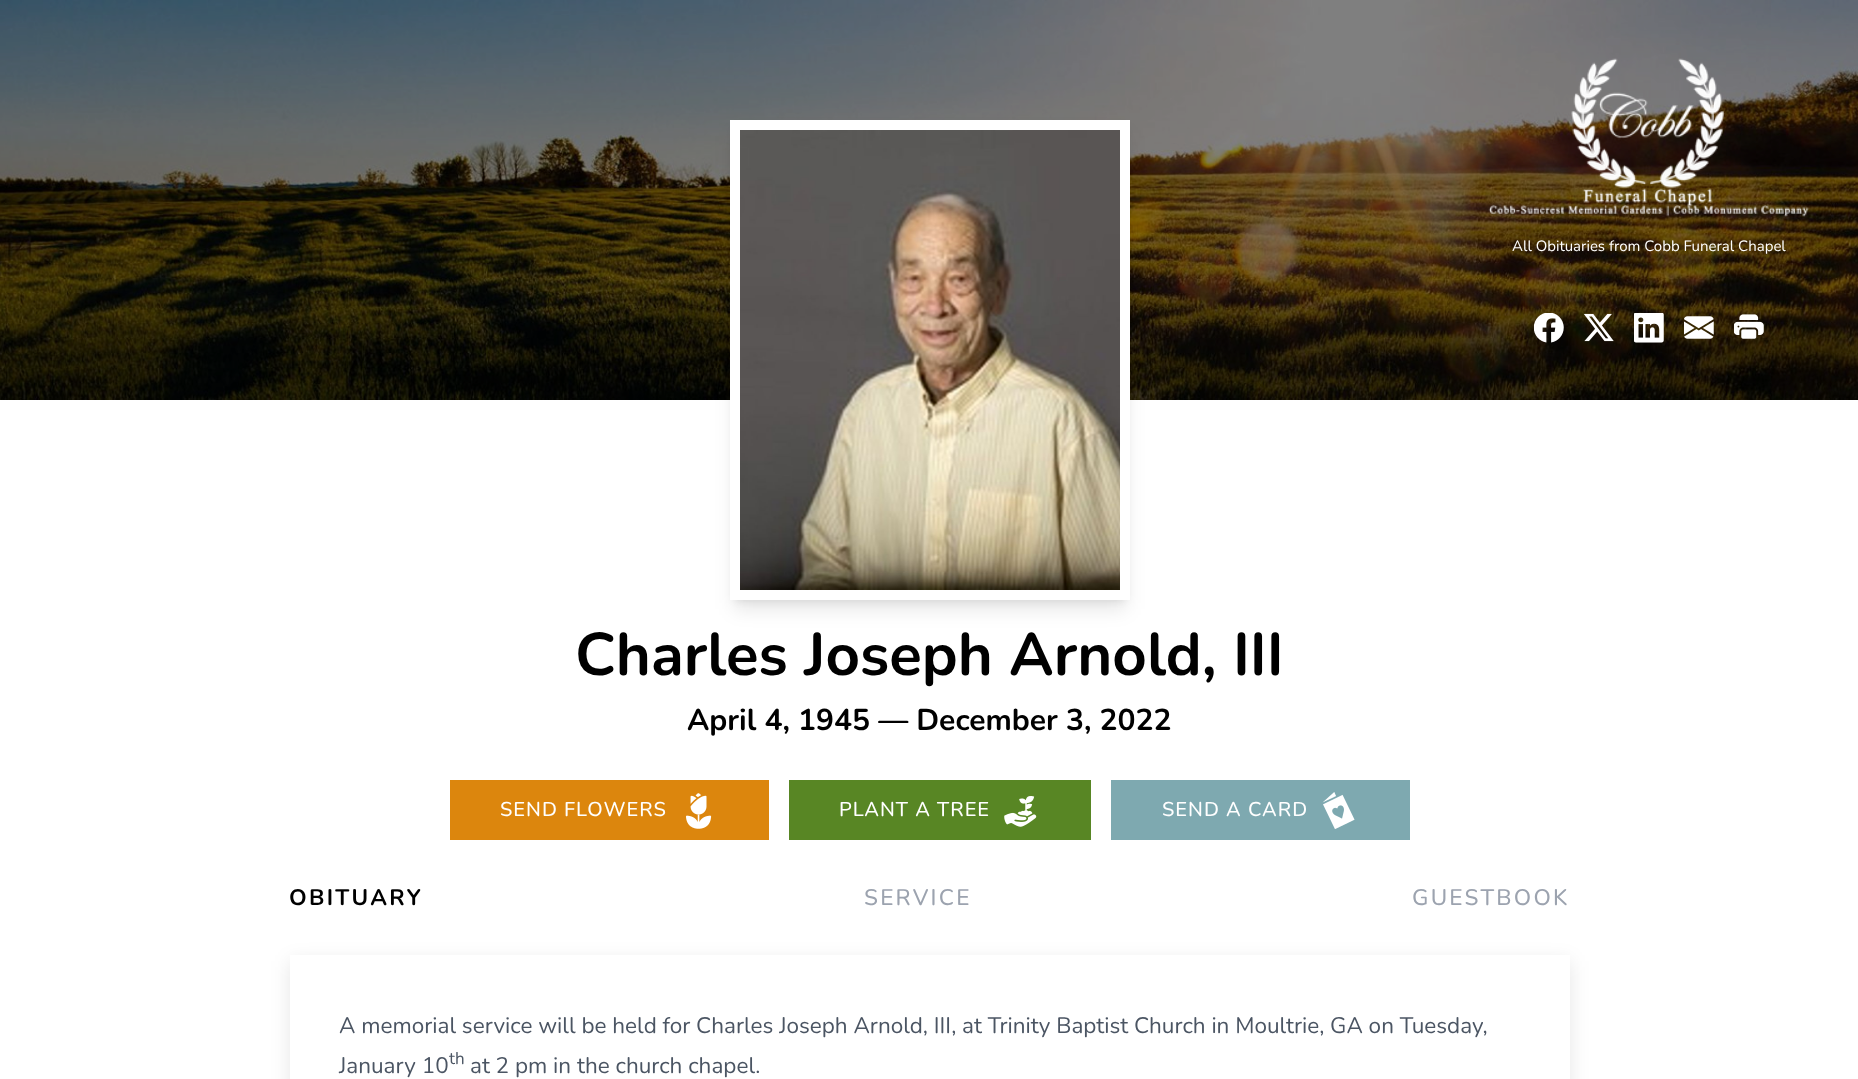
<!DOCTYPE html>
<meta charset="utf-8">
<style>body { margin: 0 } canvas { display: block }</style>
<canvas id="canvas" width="1858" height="1079"></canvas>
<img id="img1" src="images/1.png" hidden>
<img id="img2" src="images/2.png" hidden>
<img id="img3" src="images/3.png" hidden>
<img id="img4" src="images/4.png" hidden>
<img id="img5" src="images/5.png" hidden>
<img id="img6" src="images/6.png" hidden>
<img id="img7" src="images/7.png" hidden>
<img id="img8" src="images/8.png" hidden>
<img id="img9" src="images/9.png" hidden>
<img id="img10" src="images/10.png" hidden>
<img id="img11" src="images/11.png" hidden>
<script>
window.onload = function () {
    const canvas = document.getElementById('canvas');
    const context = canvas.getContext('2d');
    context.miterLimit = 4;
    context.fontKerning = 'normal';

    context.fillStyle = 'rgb(255, 255, 255)';
    context.fillRect(0, 0, 1858, 1079);
    context.drawImage(document.getElementById('img1'), 0, 0, 1858, 400);
    context.drawImage(document.getElementById('img2'), 1488, 58, 321, 159);
    context.drawImage(document.getElementById('img3'), 1534, 313, 30, 30);
    context.drawImage(document.getElementById('img4'), 1584, 313, 30, 29);
    context.drawImage(document.getElementById('img5'), 1634, 313, 30, 30);
    context.drawImage(document.getElementById('img6'), 1684, 316, 30, 23);
    context.drawImage(document.getElementById('img7'), 1734, 314, 30, 25);
    context.fillStyle = 'rgba(0, 0, 0, 0.1)';
    context.filter = 'blur(4px)';
    context.beginPath();
    context.rect(735, 130, 390, 470);
    context.fill();
    context.filter = 'none';
    context.filter = 'blur(9.5px)';
    context.beginPath();
    context.rect(734, 136, 392, 473);
    context.fill();
    context.filter = 'none';
    context.strokeStyle = 'rgb(255, 255, 255)';
    context.lineWidth = 10;
    context.strokeRect(735, 125, 390, 470);
    context.drawImage(document.getElementById('img8'), 740, 130, 380, 460);
    context.fillStyle = 'rgb(220, 134, 13)';
    context.fillRect(450, 780, 319, 60);
    context.drawImage(document.getElementById('img9'), 686, 793, 26, 36);
    context.fillStyle = 'rgb(88, 134, 36)';
    context.fillRect(789, 780, 302, 60);
    context.drawImage(document.getElementById('img10'), 1004, 796, 33, 31);
    context.fillStyle = 'rgb(126, 169, 176)';
    context.fillRect(1111, 780, 299, 60);
    context.drawImage(document.getElementById('img11'), 1322, 792, 33, 37);
    context.save();
    context.beginPath();
    context.moveTo(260, 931);
    context.lineTo(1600, 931);
    context.lineTo(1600, 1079);
    context.lineTo(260, 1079);
    context.closePath();
    context.moveTo(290, 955);
    context.lineTo(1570, 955);
    context.lineTo(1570, 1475);
    context.lineTo(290, 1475);
    context.closePath();
    context.clip('evenodd');
    context.fillStyle = 'rgba(0, 0, 0, 0.1)';
    context.filter = 'blur(9.5px)';
    context.beginPath();
    context.rect(290, 961, 1280, 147);
    context.fill();
    context.filter = 'none';
    context.restore();
    context.font = '15px Nunito';
    context.fillStyle = 'rgb(255, 255, 255)';
    context.fillText('All Obituaries from Cobb Funeral Chapel', 1512, 251);
    context.font = 'bold 60px Nunito';
    context.fillStyle = 'rgb(0, 0, 0)';
    context.fillText('Charles Joseph Arnold, III', 575, 675);
    context.font = 'bold 30px Nunito';
    context.fillText('April 4, 1945 — December 3, 2022', 687, 730);
    context.letterSpacing = '1px';
    context.font = '500 20px Nunito';
    context.fillStyle = 'rgb(255, 255, 255)';
    context.fillText('SEND FLOWERS', 500, 816);
    context.fillText('PLANT A TREE', 839, 816);
    context.fillText('SEND A CARD', 1162, 816);
    context.letterSpacing = '2.25px';
    context.font = 'bold 22.5px Nunito';
    context.fillStyle = 'rgb(0, 0, 0)';
    context.fillText('OBITUARY', 289, 905);
    context.font = '500 22.5px Nunito';
    context.fillStyle = 'rgb(156, 163, 175)';
    context.fillText('SERVICE', 864, 905);
    context.fillText('GUESTBOOK', 1412, 905);
    context.letterSpacing = '0px';
    context.font = '22.5px Nunito';
    context.fillStyle = 'rgb(75, 85, 99)';
    context.fillText('A memorial service will be held for Charles Joseph Arnold, III, at Trinity Baptist Church in Moultrie, GA on Tuesday,', 339, 1033);
    context.fillText('January 10', 339, 1073);
    context.font = '17px Nunito';
    context.fillText('th', 449, 1064);
    context.font = '22.5px Nunito';
    context.fillText('at 2 pm in the church chapel.', 470, 1073);
};
</script>
